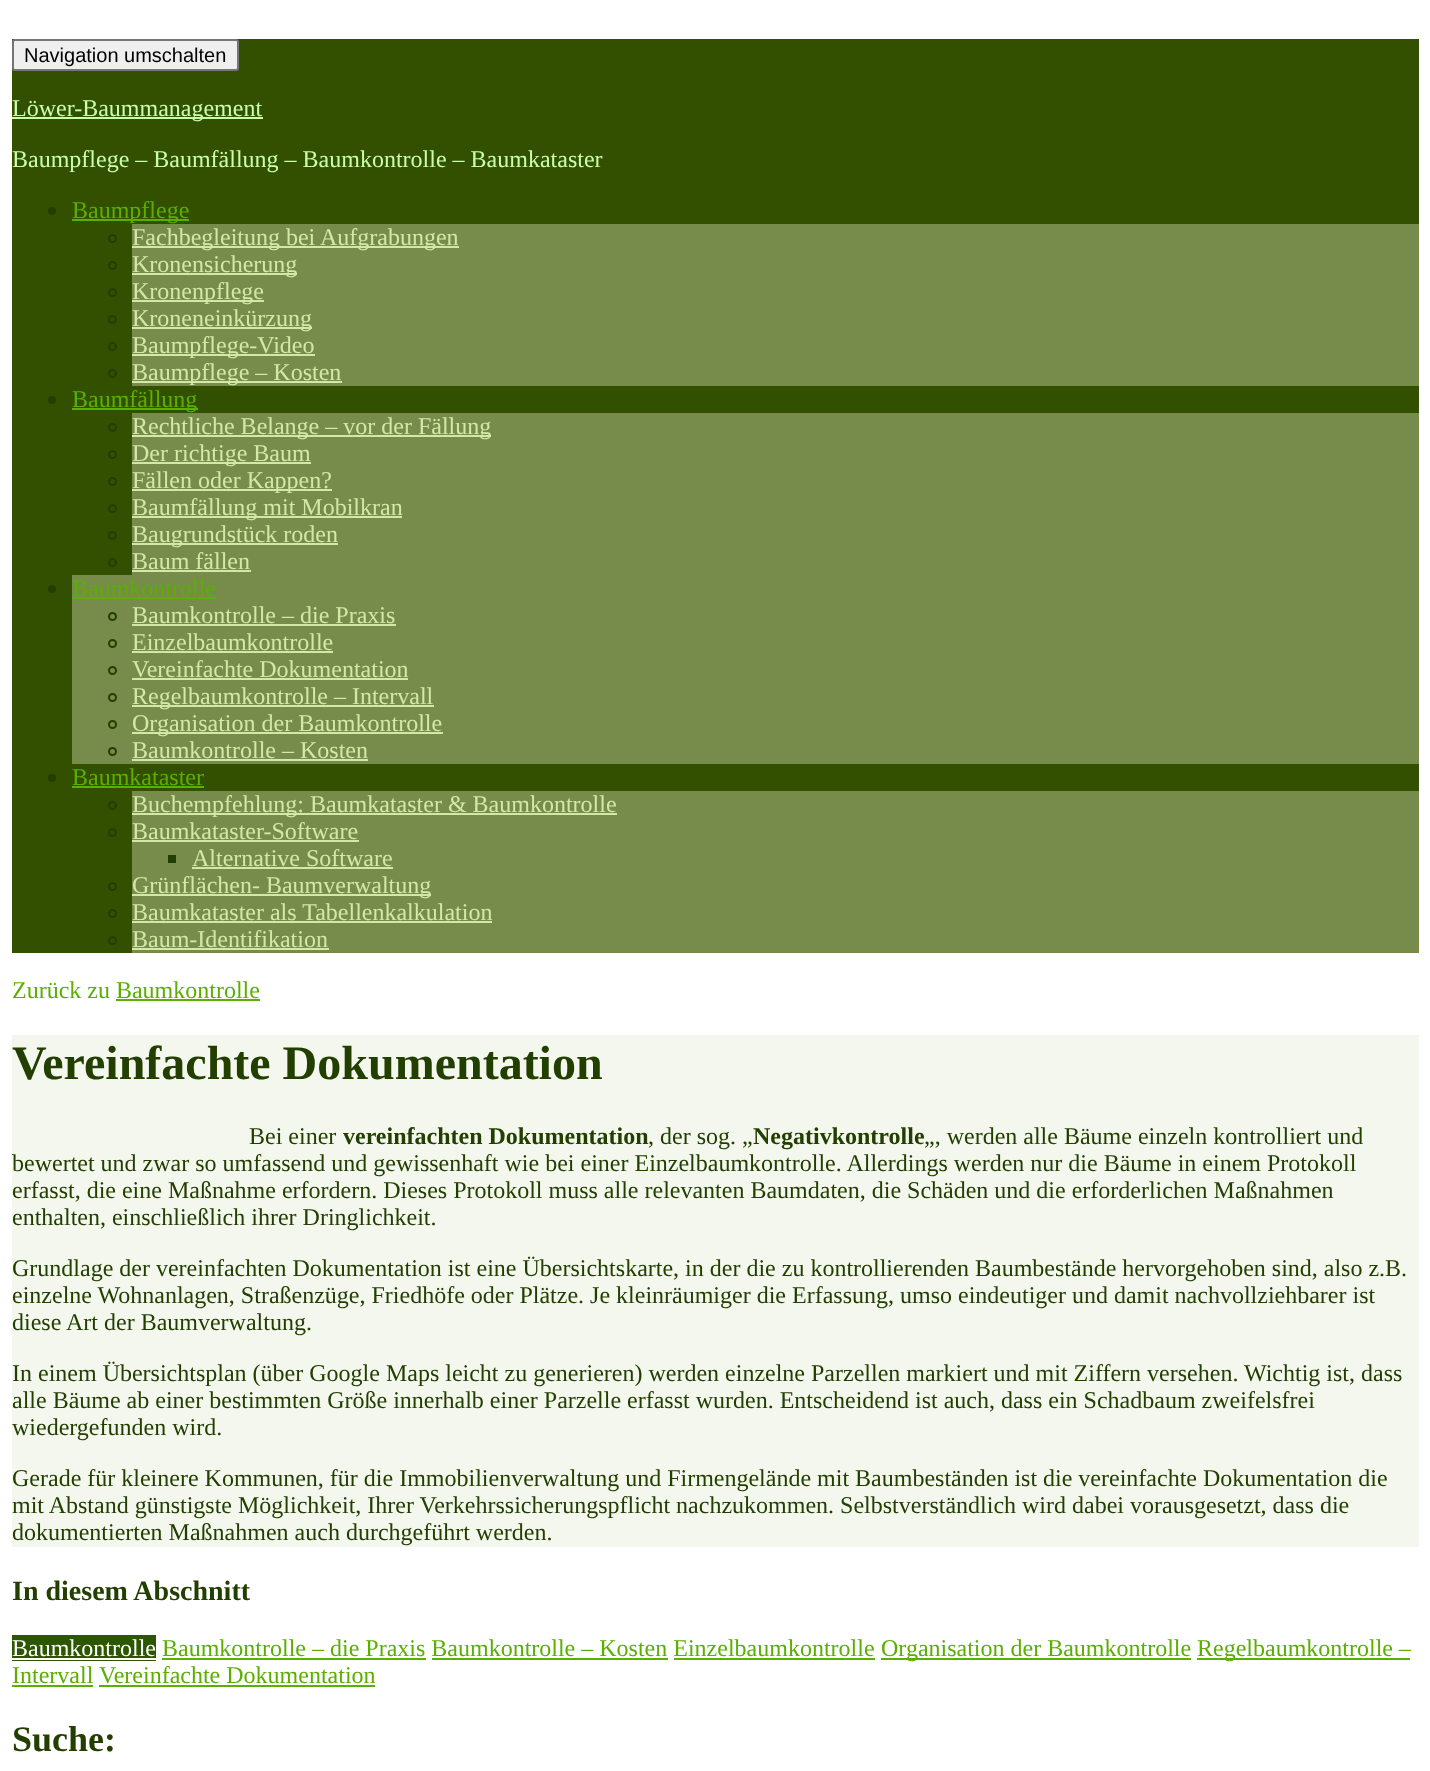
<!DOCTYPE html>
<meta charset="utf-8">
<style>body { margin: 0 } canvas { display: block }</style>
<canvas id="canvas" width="1430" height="1771"></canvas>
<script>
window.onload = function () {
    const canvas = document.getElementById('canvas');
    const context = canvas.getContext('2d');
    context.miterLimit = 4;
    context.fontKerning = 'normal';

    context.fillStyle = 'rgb(255, 255, 255)';
    context.fillRect(0, 0, 1430, 1771);
    context.fillStyle = 'rgb(51, 79, 0)';
    context.fillRect(12, 39, 1407, 914);
    context.fillStyle = 'rgb(239, 239, 239)';
    context.beginPath();
    context.roundRect(13, 40, 225, 30, 2);
    context.fill();
    context.strokeStyle = 'rgb(118, 118, 118)';
    context.lineWidth = 2;
    context.stroke();
    context.fillStyle = 'rgb(200, 255, 173)';
    context.fillRect(12, 117, 251, 2);
    context.fillStyle = 'rgb(35, 63, 0)';
    context.beginPath();
    context.arc(52, 211, 4, 0, 2 * Math.PI);
    context.fill();
    context.fillStyle = 'rgb(90, 175, 0)';
    context.fillRect(72, 219, 117, 2);
    context.fillStyle = 'rgb(119, 140, 75)';
    context.fillRect(132, 224, 1287, 162);
    context.beginPath();
    context.arc(112.5, 238.5, 3.5, 0, 2 * Math.PI);
    context.strokeStyle = 'rgb(35, 63, 0)';
    context.stroke();
    context.fillStyle = 'rgb(210, 232, 167)';
    context.fillRect(132, 246, 327, 2);
    context.beginPath();
    context.arc(112.5, 265.5, 3.5, 0, 2 * Math.PI);
    context.stroke();
    context.fillRect(132, 273, 165, 2);
    context.beginPath();
    context.arc(112.5, 292.5, 3.5, 0, 2 * Math.PI);
    context.stroke();
    context.fillRect(132, 300, 132, 2);
    context.beginPath();
    context.arc(112.5, 319.5, 3.5, 0, 2 * Math.PI);
    context.stroke();
    context.fillRect(132, 327, 180, 2);
    context.beginPath();
    context.arc(112.5, 346.5, 3.5, 0, 2 * Math.PI);
    context.stroke();
    context.fillRect(132, 354, 183, 2);
    context.beginPath();
    context.arc(112.5, 373.5, 3.5, 0, 2 * Math.PI);
    context.stroke();
    context.fillRect(132, 381, 210, 2);
    context.fillStyle = 'rgb(35, 63, 0)';
    context.beginPath();
    context.arc(52, 400, 4, 0, 2 * Math.PI);
    context.fill();
    context.fillStyle = 'rgb(90, 175, 0)';
    context.fillRect(72, 408, 126, 2);
    context.fillStyle = 'rgb(119, 140, 75)';
    context.fillRect(132, 413, 1287, 162);
    context.beginPath();
    context.arc(112.5, 427.5, 3.5, 0, 2 * Math.PI);
    context.stroke();
    context.fillStyle = 'rgb(210, 232, 167)';
    context.fillRect(132, 435, 359, 2);
    context.beginPath();
    context.arc(112.5, 454.5, 3.5, 0, 2 * Math.PI);
    context.stroke();
    context.fillRect(132, 462, 179, 2);
    context.beginPath();
    context.arc(112.5, 481.5, 3.5, 0, 2 * Math.PI);
    context.stroke();
    context.fillRect(132, 489, 200, 2);
    context.beginPath();
    context.arc(112.5, 508.5, 3.5, 0, 2 * Math.PI);
    context.stroke();
    context.fillRect(132, 516, 270, 2);
    context.beginPath();
    context.arc(112.5, 535.5, 3.5, 0, 2 * Math.PI);
    context.stroke();
    context.fillRect(132, 543, 206, 2);
    context.beginPath();
    context.arc(112.5, 562.5, 3.5, 0, 2 * Math.PI);
    context.stroke();
    context.fillRect(132, 570, 119, 2);
    context.fillStyle = 'rgb(119, 140, 75)';
    context.fillRect(72, 575, 1347, 189);
    context.fillStyle = 'rgb(35, 63, 0)';
    context.beginPath();
    context.arc(52, 589, 4, 0, 2 * Math.PI);
    context.fill();
    context.fillStyle = 'rgb(90, 175, 0)';
    context.fillRect(72, 597, 144, 2);
    context.beginPath();
    context.arc(112.5, 616.5, 3.5, 0, 2 * Math.PI);
    context.stroke();
    context.fillStyle = 'rgb(210, 232, 167)';
    context.fillRect(132, 624, 264, 2);
    context.beginPath();
    context.arc(112.5, 643.5, 3.5, 0, 2 * Math.PI);
    context.stroke();
    context.fillRect(132, 651, 201, 2);
    context.beginPath();
    context.arc(112.5, 670.5, 3.5, 0, 2 * Math.PI);
    context.stroke();
    context.fillRect(132, 678, 276, 2);
    context.beginPath();
    context.arc(112.5, 697.5, 3.5, 0, 2 * Math.PI);
    context.stroke();
    context.fillRect(132, 705, 302, 2);
    context.beginPath();
    context.arc(112.5, 724.5, 3.5, 0, 2 * Math.PI);
    context.stroke();
    context.fillRect(132, 732, 311, 2);
    context.beginPath();
    context.arc(112.5, 751.5, 3.5, 0, 2 * Math.PI);
    context.stroke();
    context.fillRect(132, 759, 236, 2);
    context.fillStyle = 'rgb(35, 63, 0)';
    context.beginPath();
    context.arc(52, 778, 4, 0, 2 * Math.PI);
    context.fill();
    context.fillStyle = 'rgb(90, 175, 0)';
    context.fillRect(72, 786, 132, 2);
    context.fillStyle = 'rgb(119, 140, 75)';
    context.fillRect(132, 791, 1287, 162);
    context.beginPath();
    context.arc(112.5, 805.5, 3.5, 0, 2 * Math.PI);
    context.stroke();
    context.fillStyle = 'rgb(210, 232, 167)';
    context.fillRect(132, 813, 485, 2);
    context.beginPath();
    context.arc(112.5, 832.5, 3.5, 0, 2 * Math.PI);
    context.stroke();
    context.fillRect(132, 840, 227, 2);
    context.fillStyle = 'rgb(35, 63, 0)';
    context.fillRect(168, 855, 8, 8);
    context.fillStyle = 'rgb(210, 232, 167)';
    context.fillRect(192, 867, 201, 2);
    context.beginPath();
    context.arc(112.5, 886.5, 3.5, 0, 2 * Math.PI);
    context.stroke();
    context.fillRect(132, 894, 299, 2);
    context.beginPath();
    context.arc(112.5, 913.5, 3.5, 0, 2 * Math.PI);
    context.stroke();
    context.fillRect(132, 921, 360, 2);
    context.beginPath();
    context.arc(112.5, 940.5, 3.5, 0, 2 * Math.PI);
    context.stroke();
    context.fillRect(132, 948, 197, 2);
    context.fillStyle = 'rgb(90, 175, 0)';
    context.fillRect(116, 999, 144, 2);
    context.fillStyle = 'rgb(244, 247, 237)';
    context.fillRect(12, 1035, 1407, 512);
    context.fillStyle = 'rgb(44, 86, 0)';
    context.fillRect(12, 1635, 144, 26);
    context.fillStyle = 'rgb(255, 255, 255)';
    context.fillRect(12, 1658, 144, 2);
    context.fillStyle = 'rgb(90, 175, 0)';
    context.fillRect(162, 1658, 264, 2);
    context.fillRect(881, 1658, 310, 2);
    context.fillRect(1197, 1658, 213, 2);
    context.fillRect(432, 1658, 236, 2);
    context.fillRect(674, 1658, 201, 2);
    context.fillRect(12, 1685, 81, 2);
    context.fillRect(99, 1685, 276, 2);
    context.font = '20px Liberation Sans';
    context.fillStyle = 'rgb(0, 0, 0)';
    context.fillText('Navigation umschalten', 24, 62);
    context.font = '24px Liberation Serif';
    context.fillStyle = 'rgb(200, 255, 173)';
    context.fillText('Löwer-Baummanagement', 12, 116);
    context.fillText('Baumpflege – Baumfällung – Baumkontrolle – Baumkataster', 12, 167);
    context.fillStyle = 'rgb(90, 175, 0)';
    context.fillText('Baumpflege', 72, 218);
    context.fillStyle = 'rgb(210, 232, 167)';
    context.fillText('Fachbegleitung bei Aufgrabungen', 132, 245);
    context.fillText('Kronensicherung', 132, 272);
    context.fillText('Kronenpflege', 132, 299);
    context.fillText('Kroneneinkürzung', 132, 326);
    context.fillText('Baumpflege-Video', 132, 353);
    context.fillText('Baumpflege – Kosten', 132, 380);
    context.fillStyle = 'rgb(90, 175, 0)';
    context.fillText('Baumfällung', 72, 407);
    context.fillStyle = 'rgb(210, 232, 167)';
    context.fillText('Rechtliche Belange – vor der Fällung', 132, 434);
    context.fillText('Der richtige Baum', 132, 461);
    context.fillText('Fällen oder Kappen?', 132, 488);
    context.fillText('Baumfällung mit Mobilkran', 132, 515);
    context.fillText('Baugrundstück roden', 132, 542);
    context.fillText('Baum fällen', 132, 569);
    context.fillStyle = 'rgb(90, 175, 0)';
    context.fillText('Baumkontrolle', 72, 596);
    context.fillStyle = 'rgb(210, 232, 167)';
    context.fillText('Baumkontrolle – die Praxis', 132, 623);
    context.fillText('Einzelbaumkontrolle', 132, 650);
    context.fillText('Vereinfachte Dokumentation', 132, 677);
    context.fillText('Regelbaumkontrolle – Intervall', 132, 704);
    context.fillText('Organisation der Baumkontrolle', 132, 731);
    context.fillText('Baumkontrolle – Kosten', 132, 758);
    context.fillStyle = 'rgb(90, 175, 0)';
    context.fillText('Baumkataster', 72, 785);
    context.fillStyle = 'rgb(210, 232, 167)';
    context.fillText('Buchempfehlung: Baumkataster & Baumkontrolle', 132, 812);
    context.fillText('Baumkataster-Software', 132, 839);
    context.fillText('Alternative Software', 192, 866);
    context.fillText('Grünflächen- Baumverwaltung', 132, 893);
    context.fillText('Baumkataster als Tabellenkalkulation', 132, 920);
    context.fillText('Baum-Identifikation', 132, 947);
    context.fillStyle = 'rgb(90, 175, 0)';
    context.fillText('Zurück zu Baumkontrolle', 12, 998);
    context.font = 'bold 48px Liberation Serif';
    context.fillStyle = 'rgb(35, 63, 0)';
    context.fillText('Vereinfachte Dokumentation', 12, 1079);
    context.font = '24px Liberation Serif';
    context.fillText('Bei einer', 249, 1144);
    context.font = 'bold 24px Liberation Serif';
    context.fillText('vereinfachten Dokumentation', 343, 1144);
    context.font = '24px Liberation Serif';
    context.fillText(', der sog. „', 648, 1144);
    context.font = 'bold 24px Liberation Serif';
    context.fillText('Negativkontrolle', 753, 1144);
    context.font = '24px Liberation Serif';
    context.fillText('„, werden alle Bäume einzeln kontrolliert und', 924, 1144);
    context.fillText('bewertet und zwar so umfassend und gewissenhaft wie bei einer Einzelbaumkontrolle. Allerdings werden nur die Bäume in einem Protokoll', 12, 1171);
    context.fillText('erfasst, die eine Maßnahme erfordern. Dieses Protokoll muss alle relevanten Baumdaten, die Schäden und die erforderlichen Maßnahmen', 12, 1198);
    context.fillText('enthalten, einschließlich ihrer Dringlichkeit.', 12, 1225);
    context.fillText('Grundlage der vereinfachten Dokumentation ist eine Übersichtskarte, in der die zu kontrollierenden Baumbestände hervorgehoben sind, also z.B.', 12, 1276);
    context.fillText('einzelne Wohnanlagen, Straßenzüge, Friedhöfe oder Plätze. Je kleinräumiger die Erfassung, umso eindeutiger und damit nachvollziehbarer ist', 12, 1303);
    context.fillText('diese Art der Baumverwaltung.', 12, 1330);
    context.fillText('In einem Übersichtsplan (über Google Maps leicht zu generieren) werden einzelne Parzellen markiert und mit Ziffern versehen. Wichtig ist, dass', 12, 1381);
    context.fillText('alle Bäume ab einer bestimmten Größe innerhalb einer Parzelle erfasst wurden. Entscheidend ist auch, dass ein Schadbaum zweifelsfrei', 12, 1408);
    context.fillText('wiedergefunden wird.', 12, 1435);
    context.fillText('Gerade für kleinere Kommunen, für die Immobilienverwaltung und Firmengelände mit Baumbeständen ist die vereinfachte Dokumentation die', 12, 1486);
    context.fillText('mit Abstand günstigste Möglichkeit, Ihrer Verkehrssicherungspflicht nachzukommen. Selbstverständlich wird dabei vorausgesetzt, dass die', 12, 1513);
    context.fillText('dokumentierten Maßnahmen auch durchgeführt werden.', 12, 1540);
    context.font = 'bold 28px Liberation Serif';
    context.fillText('In diesem Abschnitt', 12, 1600);
    context.font = '24px Liberation Serif';
    context.fillStyle = 'rgb(255, 255, 255)';
    context.fillText('Baumkontrolle', 12, 1656);
    context.fillStyle = 'rgb(90, 175, 0)';
    context.fillText('Baumkontrolle – die Praxis Baumkontrolle – Kosten Einzelbaumkontrolle', 162, 1656);
    context.fillText('Organisation der Baumkontrolle', 881, 1656);
    context.fillText('Regelbaumkontrolle –', 1197, 1656);
    context.fillText('Intervall', 12, 1683);
    context.fillText('Vereinfachte Dokumentation', 99, 1683);
    context.font = 'bold 36px Liberation Serif';
    context.fillStyle = 'rgb(35, 63, 0)';
    context.fillText('Suche:', 12, 1751);
};
</script>
